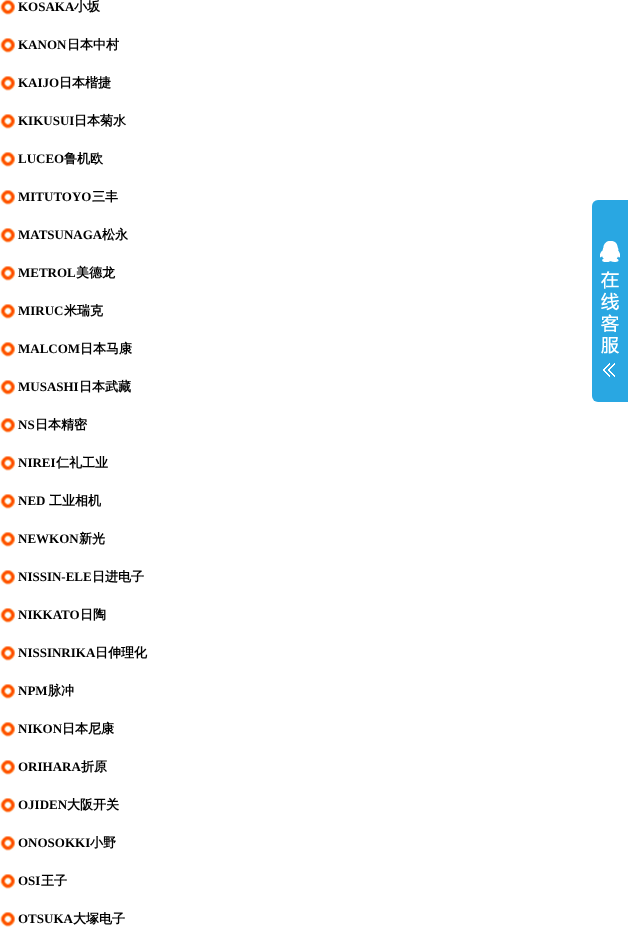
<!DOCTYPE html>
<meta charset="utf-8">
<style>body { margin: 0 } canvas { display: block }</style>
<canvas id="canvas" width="628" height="936"></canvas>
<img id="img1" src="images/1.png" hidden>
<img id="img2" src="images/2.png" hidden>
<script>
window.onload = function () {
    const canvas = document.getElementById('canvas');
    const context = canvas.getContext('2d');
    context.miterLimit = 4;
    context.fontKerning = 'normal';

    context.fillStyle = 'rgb(255, 255, 255)';
    context.fillRect(0, 0, 628, 936);
    context.drawImage(document.getElementById('img1'), 0, 0, 15, 15);
    context.drawImage(document.getElementById('img1'), 0, 38, 15, 15);
    context.drawImage(document.getElementById('img1'), 0, 76, 15, 15);
    context.drawImage(document.getElementById('img1'), 0, 114, 15, 15);
    context.drawImage(document.getElementById('img1'), 0, 152, 15, 15);
    context.drawImage(document.getElementById('img1'), 0, 190, 15, 15);
    context.drawImage(document.getElementById('img1'), 0, 228, 15, 15);
    context.drawImage(document.getElementById('img1'), 0, 266, 15, 15);
    context.drawImage(document.getElementById('img1'), 0, 304, 15, 15);
    context.drawImage(document.getElementById('img1'), 0, 342, 15, 15);
    context.drawImage(document.getElementById('img1'), 0, 380, 15, 15);
    context.drawImage(document.getElementById('img1'), 0, 418, 15, 15);
    context.drawImage(document.getElementById('img1'), 0, 456, 15, 15);
    context.drawImage(document.getElementById('img1'), 0, 494, 15, 15);
    context.drawImage(document.getElementById('img1'), 0, 532, 15, 15);
    context.drawImage(document.getElementById('img1'), 0, 570, 15, 15);
    context.drawImage(document.getElementById('img1'), 0, 608, 15, 15);
    context.drawImage(document.getElementById('img1'), 0, 646, 15, 15);
    context.drawImage(document.getElementById('img1'), 0, 684, 15, 15);
    context.drawImage(document.getElementById('img1'), 0, 722, 15, 15);
    context.drawImage(document.getElementById('img1'), 0, 760, 15, 15);
    context.drawImage(document.getElementById('img1'), 0, 798, 15, 15);
    context.drawImage(document.getElementById('img1'), 0, 836, 15, 15);
    context.drawImage(document.getElementById('img1'), 0, 874, 15, 15);
    context.drawImage(document.getElementById('img1'), 0, 912, 15, 15);
    context.fillStyle = 'rgb(41, 167, 226)';
    context.beginPath();
    context.roundRect(592, 200, 36, 202, [6, 0, 0, 6]);
    context.fill();
    context.drawImage(document.getElementById('img2'), 600, 241, 20, 136);
    context.font = 'bold 13px Liberation Serif';
    context.fillStyle = 'rgb(0, 0, 0)';
    context.fillText('KOSAKA', 18, 11);
    context.font = 'bold 13px WenQuanYi Zen Hei';
    context.fillText('小坂', 74, 11);
    context.font = 'bold 13px Liberation Serif';
    context.fillText('KANON', 18, 49);
    context.font = 'bold 13px WenQuanYi Zen Hei';
    context.fillText('日本中村', 67, 49);
    context.font = 'bold 13px Liberation Serif';
    context.fillText('KAIJO', 18, 87);
    context.font = 'bold 13px WenQuanYi Zen Hei';
    context.fillText('日本楷捷', 59, 87);
    context.font = 'bold 13px Liberation Serif';
    context.fillText('KIKUSUI', 18, 125);
    context.font = 'bold 13px WenQuanYi Zen Hei';
    context.fillText('日本菊水', 74, 125);
    context.font = 'bold 13px Liberation Serif';
    context.fillText('LUCEO', 18, 163);
    context.font = 'bold 13px WenQuanYi Zen Hei';
    context.fillText('鲁机欧', 64, 163);
    context.font = 'bold 13px Liberation Serif';
    context.fillText('MITUTOYO', 18, 201);
    context.font = 'bold 13px WenQuanYi Zen Hei';
    context.fillText('三丰', 92, 201);
    context.font = 'bold 13px Liberation Serif';
    context.fillText('MATSUNAGA', 18, 239);
    context.font = 'bold 13px WenQuanYi Zen Hei';
    context.fillText('松永', 102, 239);
    context.font = 'bold 13px Liberation Serif';
    context.fillText('METROL', 18, 277);
    context.font = 'bold 13px WenQuanYi Zen Hei';
    context.fillText('美德龙', 76, 277);
    context.font = 'bold 13px Liberation Serif';
    context.fillText('MIRUC', 18, 315);
    context.font = 'bold 13px WenQuanYi Zen Hei';
    context.fillText('米瑞克', 64, 315);
    context.font = 'bold 13px Liberation Serif';
    context.fillText('MALCOM', 18, 353);
    context.font = 'bold 13px WenQuanYi Zen Hei';
    context.fillText('日本马康', 80, 353);
    context.font = 'bold 13px Liberation Serif';
    context.fillText('MUSASHI', 18, 391);
    context.font = 'bold 13px WenQuanYi Zen Hei';
    context.fillText('日本武藏', 79, 391);
    context.font = 'bold 13px Liberation Serif';
    context.fillText('NS', 18, 429);
    context.font = 'bold 13px WenQuanYi Zen Hei';
    context.fillText('日本精密', 35, 429);
    context.font = 'bold 13px Liberation Serif';
    context.fillText('NIREI', 18, 467);
    context.font = 'bold 13px WenQuanYi Zen Hei';
    context.fillText('仁礼工业', 56, 467);
    context.font = 'bold 13px Liberation Serif';
    context.fillText('NED', 18, 505);
    context.font = 'bold 13px WenQuanYi Zen Hei';
    context.fillText('工业相机', 49, 505);
    context.font = 'bold 13px Liberation Serif';
    context.fillText('NEWKON', 18, 543);
    context.font = 'bold 13px WenQuanYi Zen Hei';
    context.fillText('新光', 79, 543);
    context.font = 'bold 13px Liberation Serif';
    context.fillText('NISSIN-ELE', 18, 581);
    context.font = 'bold 13px WenQuanYi Zen Hei';
    context.fillText('日进电子', 92, 581);
    context.font = 'bold 13px Liberation Serif';
    context.fillText('NIKKATO', 18, 619);
    context.font = 'bold 13px WenQuanYi Zen Hei';
    context.fillText('日陶', 80, 619);
    context.font = 'bold 13px Liberation Serif';
    context.fillText('NISSINRIKA', 18, 657);
    context.font = 'bold 13px WenQuanYi Zen Hei';
    context.fillText('日伸理化', 95, 657);
    context.font = 'bold 13px Liberation Serif';
    context.fillText('NPM', 18, 695);
    context.font = 'bold 13px WenQuanYi Zen Hei';
    context.fillText('脉冲', 48, 695);
    context.font = 'bold 13px Liberation Serif';
    context.fillText('NIKON', 18, 733);
    context.font = 'bold 13px WenQuanYi Zen Hei';
    context.fillText('日本尼康', 62, 733);
    context.font = 'bold 13px Liberation Serif';
    context.fillText('ORIHARA', 18, 771);
    context.font = 'bold 13px WenQuanYi Zen Hei';
    context.fillText('折原', 81, 771);
    context.font = 'bold 13px Liberation Serif';
    context.fillText('OJIDEN', 18, 809);
    context.font = 'bold 13px WenQuanYi Zen Hei';
    context.fillText('大阪开关', 67, 809);
    context.font = 'bold 13px Liberation Serif';
    context.fillText('ONOSOKKI', 18, 847);
    context.font = 'bold 13px WenQuanYi Zen Hei';
    context.fillText('小野', 90, 847);
    context.font = 'bold 13px Liberation Serif';
    context.fillText('OSI', 18, 885);
    context.font = 'bold 13px WenQuanYi Zen Hei';
    context.fillText('王子', 41, 885);
    context.font = 'bold 13px Liberation Serif';
    context.fillText('OTSUKA', 18, 923);
    context.font = 'bold 13px WenQuanYi Zen Hei';
    context.fillText('大塚电子', 73, 923);
};
</script>
